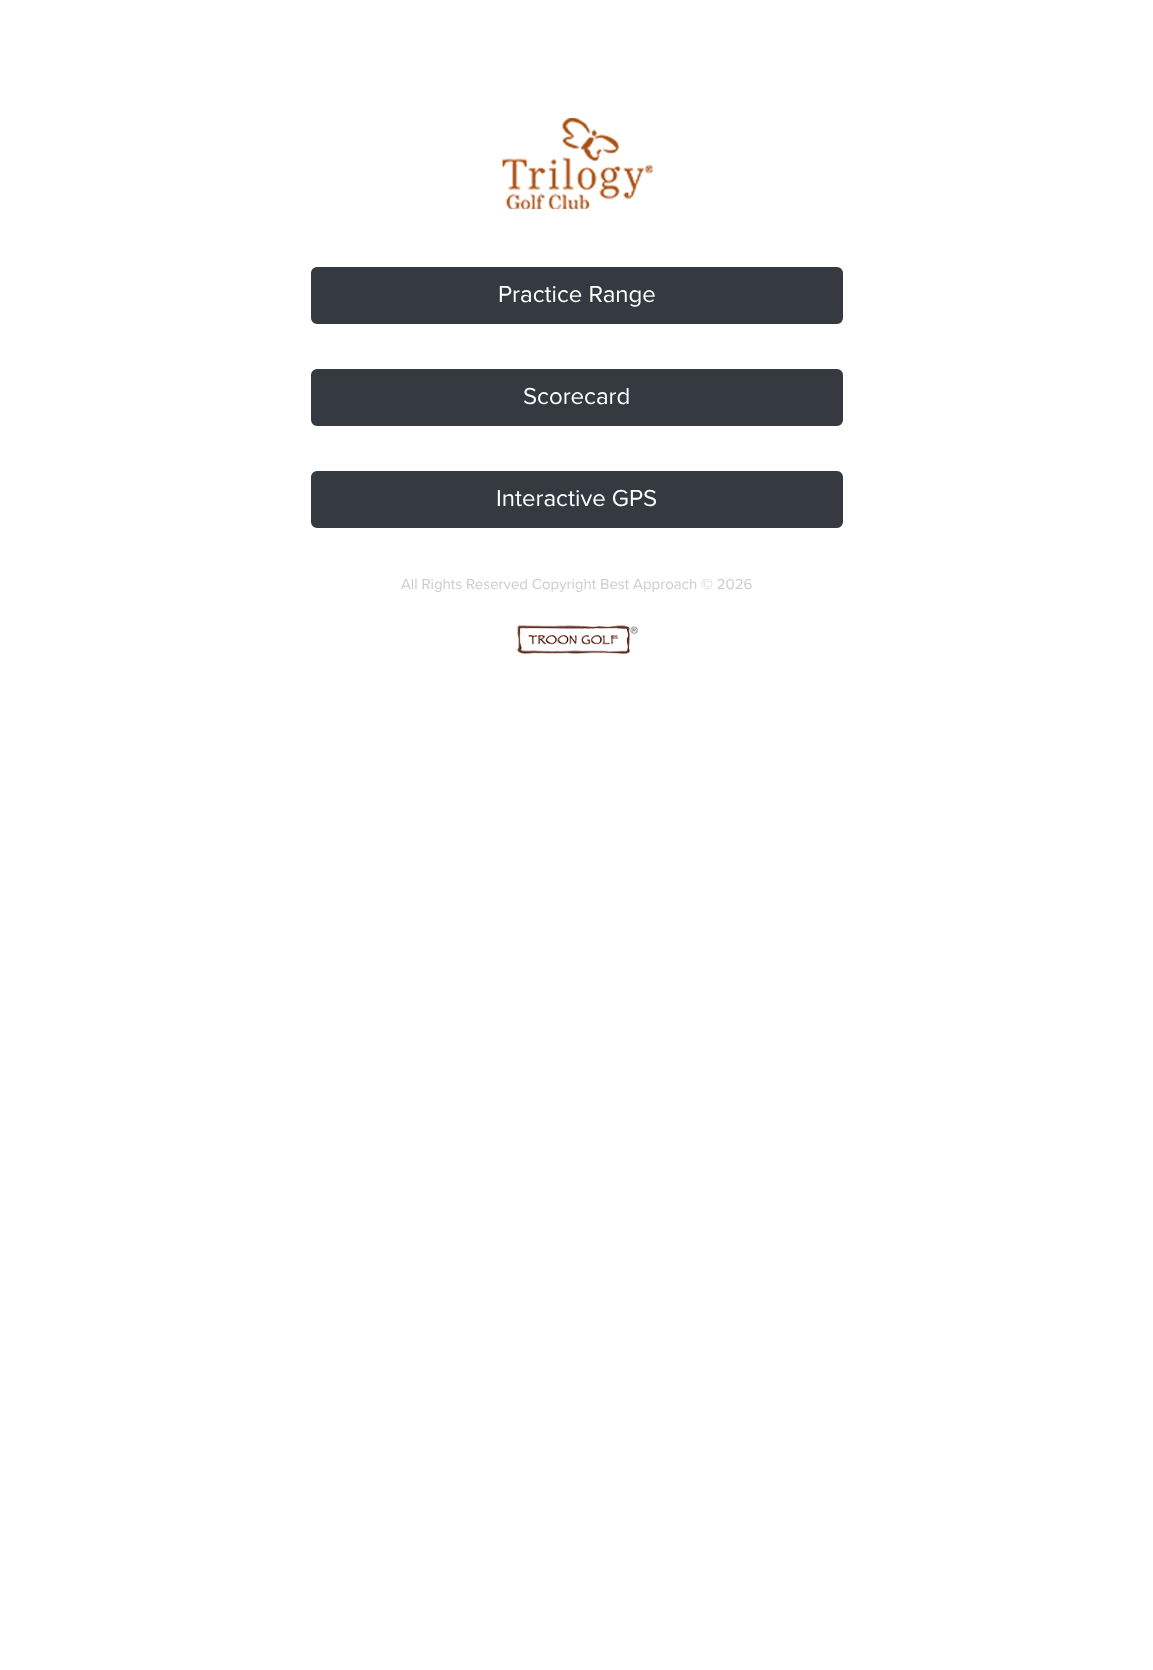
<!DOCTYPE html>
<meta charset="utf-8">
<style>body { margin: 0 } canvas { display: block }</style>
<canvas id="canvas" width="1153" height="1670"></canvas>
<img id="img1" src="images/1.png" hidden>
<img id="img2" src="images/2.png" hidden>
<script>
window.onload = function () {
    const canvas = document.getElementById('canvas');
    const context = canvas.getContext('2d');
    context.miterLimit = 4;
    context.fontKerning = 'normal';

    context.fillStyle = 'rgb(255, 255, 255)';
    context.fillRect(0, 0, 1153, 1670);
    context.drawImage(document.getElementById('img1'), 502, 118, 151, 92);
    context.fillStyle = 'rgb(52, 58, 64)';
    context.beginPath();
    context.roundRect(312, 268, 530, 55, 5);
    context.fill();
    context.strokeStyle = 'rgb(52, 58, 64)';
    context.lineWidth = 2;
    context.stroke();
    context.beginPath();
    context.roundRect(312, 370, 530, 55, 5);
    context.fill();
    context.stroke();
    context.beginPath();
    context.roundRect(312, 472, 530, 55, 5);
    context.fill();
    context.stroke();
    context.drawImage(document.getElementById('img2'), 517, 625, 121, 29);
    context.font = '24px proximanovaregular';
    context.fillStyle = 'rgb(255, 255, 255)';
    context.fillText('Practice Range', 498, 302);
    context.fillText('Scorecard', 523, 404);
    context.fillText('Interactive GPS', 496, 506);
    context.font = '15px proximanovaregular';
    context.fillStyle = 'rgb(204, 204, 204)';
    context.fillText('All Rights Reserved Copyright Best Approach © 2026', 401, 589);
};
</script>
